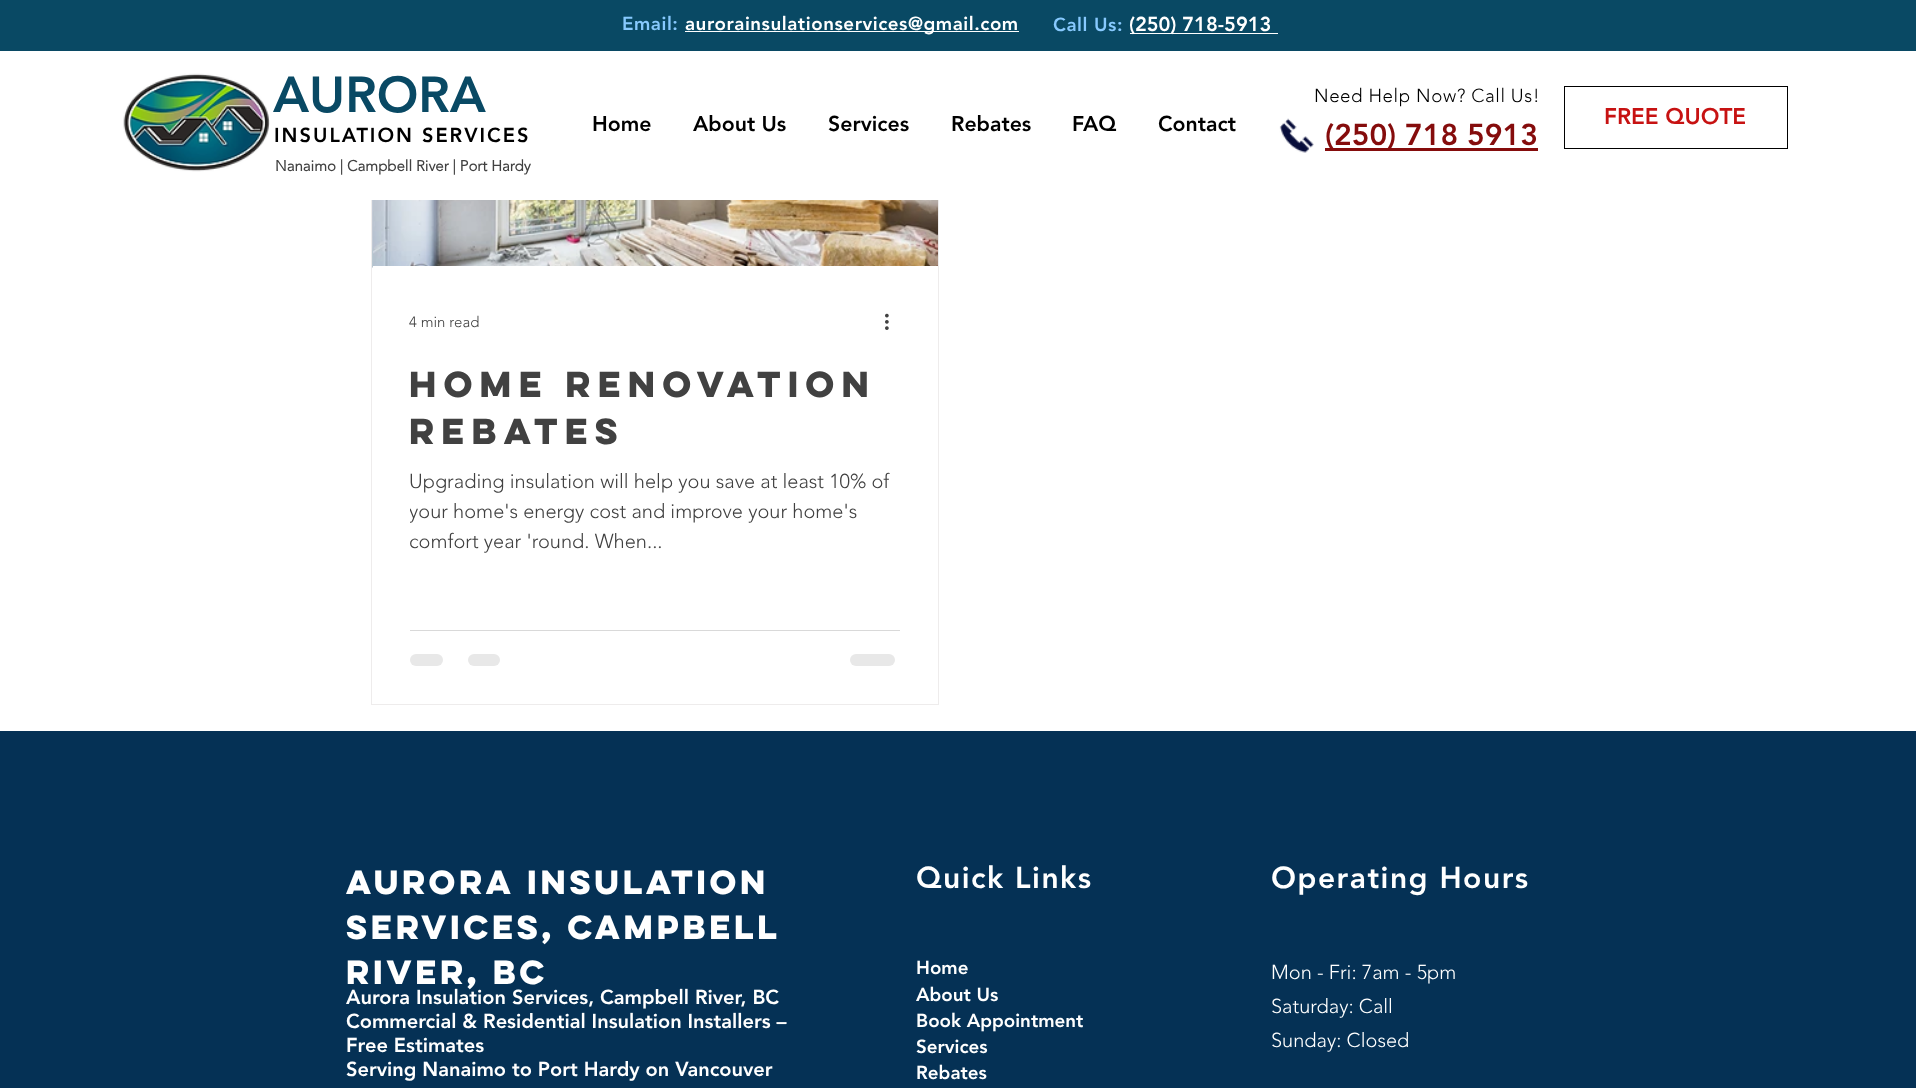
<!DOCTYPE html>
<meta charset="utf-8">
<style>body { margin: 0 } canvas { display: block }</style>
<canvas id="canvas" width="1916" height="1088"></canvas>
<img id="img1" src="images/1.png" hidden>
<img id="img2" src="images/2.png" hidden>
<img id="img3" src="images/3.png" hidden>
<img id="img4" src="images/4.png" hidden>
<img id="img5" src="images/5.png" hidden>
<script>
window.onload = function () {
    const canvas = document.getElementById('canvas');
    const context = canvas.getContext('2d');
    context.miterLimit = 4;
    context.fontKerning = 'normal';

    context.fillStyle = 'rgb(255, 255, 255)';
    context.fillRect(0, 0, 1916, 1088);
    context.fillStyle = 'rgb(9, 73, 100)';
    context.fillRect(0, 0, 1916, 51);
    context.fillStyle = 'rgb(255, 255, 255)';
    context.fillRect(685, 31, 334, 1);
    context.fillRect(1130, 33, 148, 1);
    context.drawImage(document.getElementById('img1'), 123, 73, 147, 99);
    context.drawImage(document.getElementById('img2'), 1279, 118, 35, 35);
    context.fillStyle = 'rgb(133, 12, 12)';
    context.fillRect(1325, 148, 213, 3);
    context.strokeStyle = 'rgb(0, 0, 0)';
    context.strokeRect(1564.5, 86.5, 223, 62);
    context.strokeStyle = 'rgb(238, 236, 236)';
    context.strokeRect(371.5, 81.5, 567, 623);
    context.fillStyle = 'rgb(255, 255, 255)';
    context.fillRect(371, 81, 568, 119);
    context.drawImage(document.getElementById('img3'), 372, 200, 1, 68);
    context.drawImage(document.getElementById('img4'), 373, 200, 565, 66);
    context.drawImage(document.getElementById('img5'), 885, 313, 4, 17);
    context.fillStyle = 'rgb(217, 217, 217)';
    context.fillRect(410, 630, 490, 1);
    context.fillStyle = 'rgb(232, 232, 232)';
    context.beginPath();
    context.roundRect(410, 654, 33, 12, 6);
    context.fill();
    context.beginPath();
    context.roundRect(468, 654, 32, 12, 6);
    context.fill();
    context.beginPath();
    context.roundRect(850, 654, 45, 12, 6);
    context.fill();
    context.fillStyle = 'rgb(5, 49, 85)';
    context.fillRect(0, 731, 1916, 357);
    context.letterSpacing = '0.55px';
    context.font = '900 18.75px "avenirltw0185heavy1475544"';
    context.fillStyle = 'rgb(135, 201, 254)';
    context.fillText('Email:', 622, 30);
    context.fillStyle = 'rgb(255, 255, 255)';
    context.fillText('aurorainsulationservices@gmail.com', 685, 30);
    context.fillStyle = 'rgb(135, 201, 254)';
    context.fillText('Call Us:', 1053, 31);
    context.letterSpacing = '0px';
    context.font = '900 20px "avenirltw0185heavy1475544"';
    context.fillStyle = 'rgb(255, 255, 255)';
    context.fillText('(250) 718-5913', 1129, 31);
    context.font = '900 50px "avenirltw0185heavy1475544"';
    context.fillStyle = 'rgb(9, 73, 100)';
    context.fillText('AURORA', 273, 112);
    context.font = '900 21.25px "avenirltw0185heavy1475544"';
    context.fillStyle = 'rgb(0, 0, 0)';
    context.fillText('Home', 592, 131);
    context.fillText('About Us', 693, 131);
    context.fillText('Services', 828, 131);
    context.fillText('Rebates', 951, 131);
    context.fillText('FAQ', 1072, 131);
    context.fillText('Contact', 1158, 131);
    context.letterSpacing = '0.55px';
    context.font = '300 18.75px "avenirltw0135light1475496"';
    context.fillText('Need Help Now? Call Us!', 1314, 102);
    context.letterSpacing = '0px';
    context.font = '900 30px "avenirltw0185heavy1475544"';
    context.fillStyle = 'rgb(133, 12, 12)';
    context.fillText('(250) 718 5913', 1325, 145);
    context.font = '900 22.5px "avenirltw0185heavy1475544"';
    context.fillStyle = 'rgb(199, 18, 18)';
    context.fillText('FREE QUOTE', 1604, 124);
    context.letterSpacing = '2px';
    context.font = '900 20px "avenirltw0185heavy1475544"';
    context.fillStyle = 'rgb(0, 0, 0)';
    context.fillText('INSULATION SERVICES', 274, 142);
    context.letterSpacing = '0px';
    context.font = 'bold 15px "avenirltw0135light1475496"';
    context.fillStyle = 'rgb(65, 65, 65)';
    context.fillText('Nanaimo | Campbell River | Port Hardy', 275, 171);
    context.font = '300 15px "avenirltw0135light1475496"';
    context.fillText('4 min read', 409, 327);
    context.font = 'bold 32.5px "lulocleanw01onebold"';
    context.fillText('Home Renovation', 409, 397);
    context.fillText('Rebates', 409, 444);
    context.font = '300 20px "avenirltw0135light1475496"';
    context.fillText('Upgrading insulation will help you save at least 10% of', 409, 488);
    context.save();
    context.beginPath();
    context.rect(410, 468, 490, 90);
    context.clip();
    context.fillText('your home\'s energy cost and improve your home\'s', 409, 518);
    context.restore();
    context.fillText('comfort year \'round. When...', 409, 548);
    context.letterSpacing = '-3px';
    context.font = 'bold 30px "lulocleanw01onebold"';
    context.fillStyle = 'rgb(255, 255, 255)';
    context.fillText('Aurora Insulation', 346, 894);
    context.fillText('Services, Campbell', 346, 939);
    context.fillText('River, BC', 346, 984);
    context.letterSpacing = '1.5px';
    context.font = '900 30px "avenirltw0185heavy1475544"';
    context.fillText('Quick Links', 916, 888);
    context.fillText('Operating Hours', 1271, 888);
    context.letterSpacing = '0px';
    context.font = '900 20px "avenirltw0185heavy1475544"';
    context.fillText('Aurora Insulation Services, Campbell River, BC', 346, 1004);
    context.fillText('Commercial & Residential Insulation Installers –', 346, 1028);
    context.fillText('Free Estimates', 346, 1052);
    context.fillText('Serving Nanaimo to Port Hardy on Vancouver', 346, 1076);
    context.font = '900 18.75px "avenirltw0185heavy1475544"';
    context.fillText('Home', 916, 974);
    context.fillText('About Us', 916, 1001);
    context.fillText('Book Appointment', 916, 1027);
    context.fillText('Services', 916, 1053);
    context.fillText('Rebates', 916, 1079);
    context.font = '300 20px "avenirltw0135light1475496"';
    context.fillText('Mon - Fri: 7am - 5pm', 1271, 979);
    context.fillText('Saturday: Call', 1271, 1013);
    context.fillText('Sunday: Closed', 1271, 1047);
};
</script>
